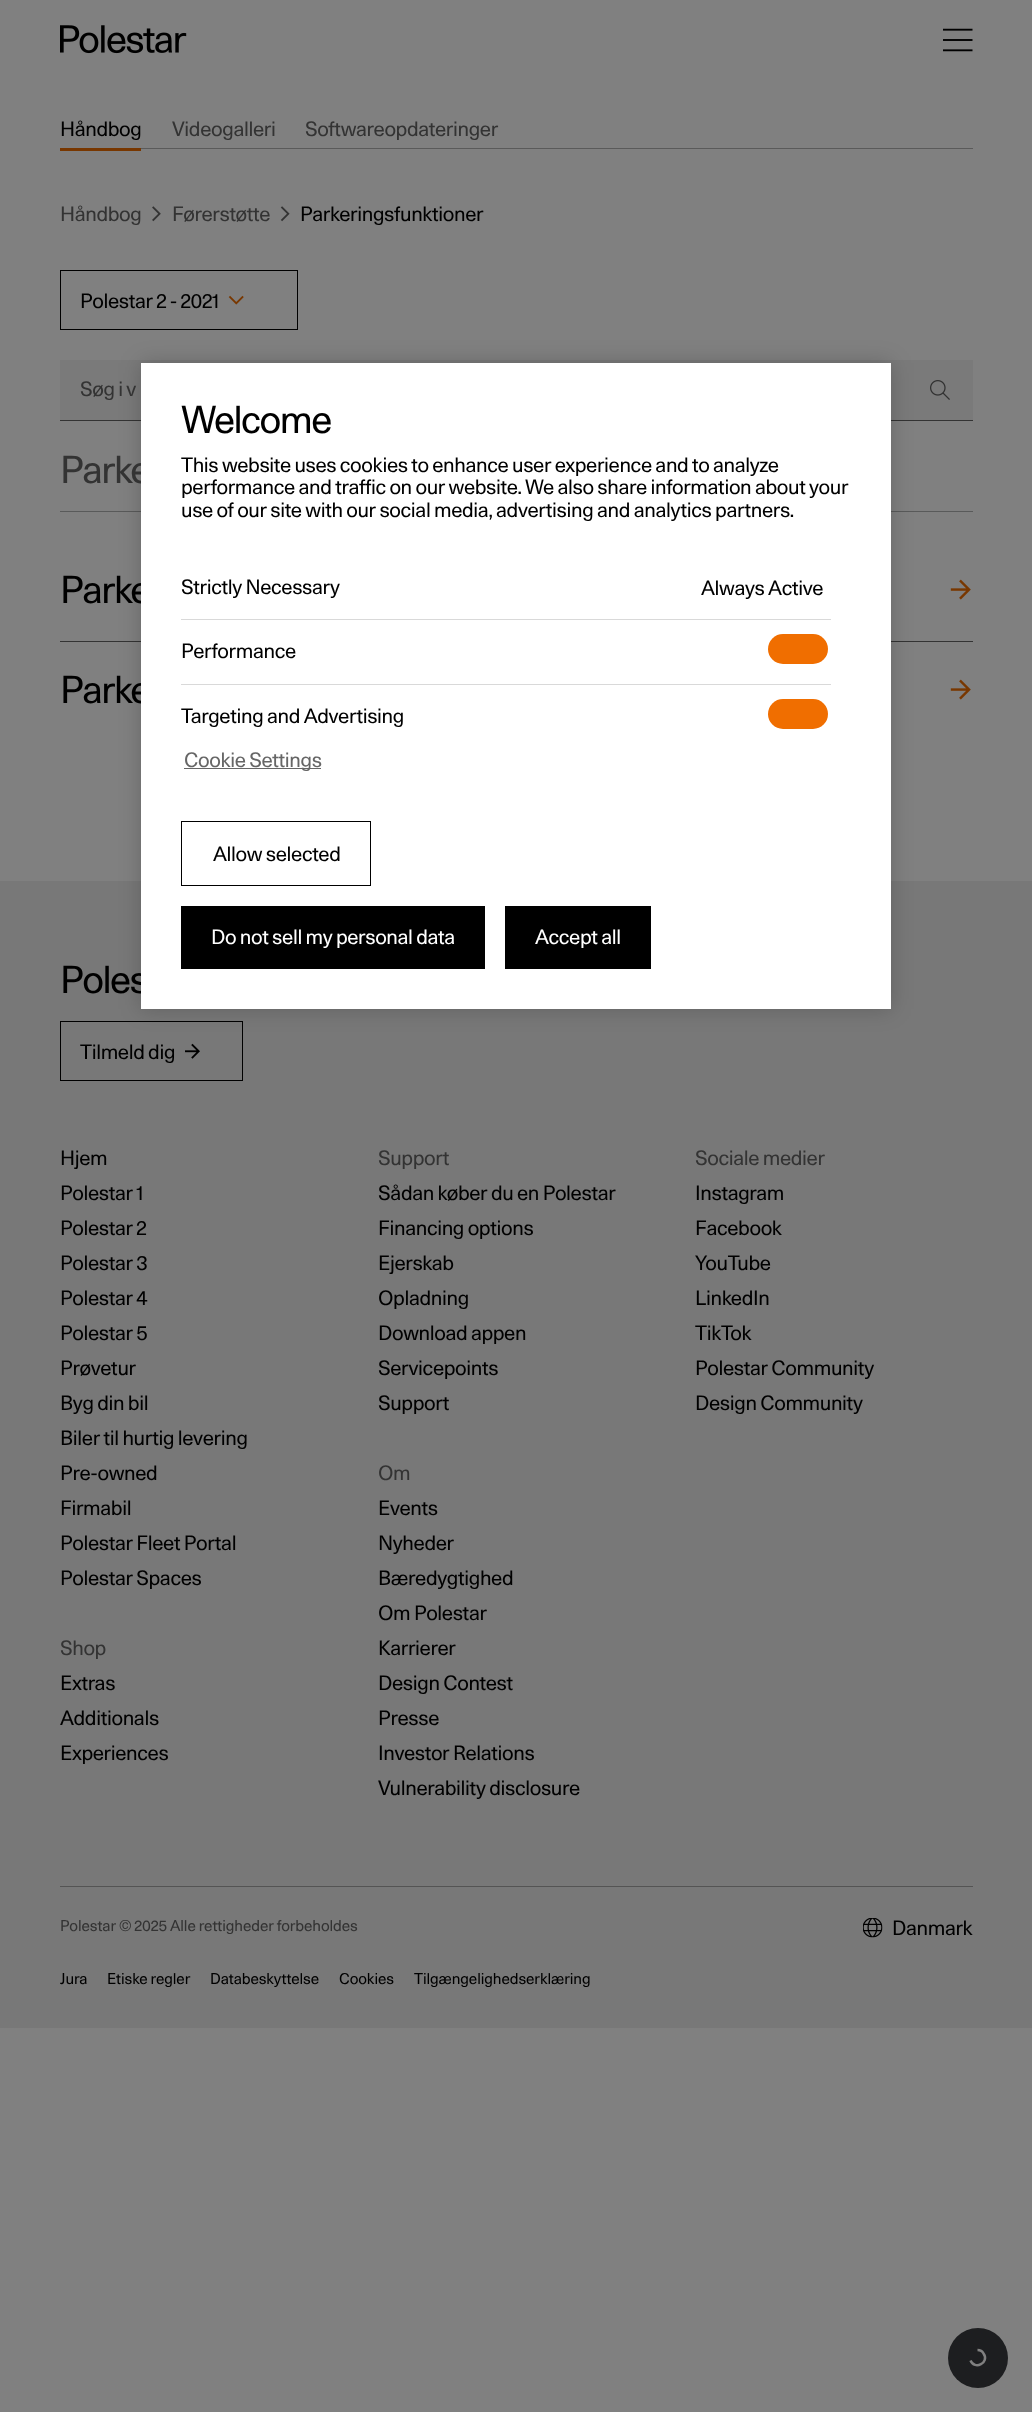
<!DOCTYPE html>
<meta charset="utf-8">
<style>body { margin: 0 } canvas { display: block }</style>
<canvas id="canvas" width="1032" height="2412"></canvas>
<img id="img1" src="images/1.png" hidden>
<img id="img2" src="images/2.png" hidden>
<img id="img3" src="images/3.png" hidden>
<img id="img4" src="images/4.png" hidden>
<img id="img5" src="images/5.png" hidden>
<img id="img6" src="images/6.png" hidden>
<img id="img7" src="images/7.png" hidden>
<img id="img8" src="images/8.png" hidden>
<img id="img9" src="images/9.png" hidden>
<script>
window.onload = function () {
    const canvas = document.getElementById('canvas');
    const context = canvas.getContext('2d');
    context.miterLimit = 4;
    context.fontKerning = 'normal';

    context.fillStyle = 'rgb(128, 128, 128)';
    context.fillRect(0, 0, 1032, 2412);
    context.drawImage(document.getElementById('img1'), 60, 25, 127, 29);
    context.drawImage(document.getElementById('img2'), 943, 28, 30, 24);
    context.fillStyle = 'rgb(120, 55, 0)';
    context.fillRect(60, 148, 81, 3);
    context.fillStyle = 'rgb(90, 90, 90)';
    context.fillRect(141, 148, 832, 1);
    context.drawImage(document.getElementById('img3'), 152, 206, 9, 16);
    context.drawImage(document.getElementById('img4'), 280, 206, 10, 16);
    context.strokeStyle = 'rgb(0, 0, 0)';
    context.strokeRect(60.5, 270.5, 237, 59);
    context.drawImage(document.getElementById('img5'), 228, 295, 16, 10);
    context.fillStyle = 'rgb(122, 122, 122)';
    context.fillRect(60, 360, 913, 60);
    context.drawImage(document.getElementById('img6'), 930, 380, 20, 20);
    context.fillStyle = 'rgb(51, 51, 51)';
    context.fillRect(60, 420, 913, 1);
    context.fillStyle = 'rgb(89, 90, 90)';
    context.fillRect(60, 511, 913, 1);
    context.drawImage(document.getElementById('img7'), 950, 579, 21, 21);
    context.fillStyle = 'rgb(51, 51, 51)';
    context.fillRect(60, 641, 913, 1);
    context.drawImage(document.getElementById('img7'), 950, 679, 21, 21);
    context.fillStyle = 'rgb(120, 120, 120)';
    context.fillRect(0, 881, 1032, 1147);
    context.strokeRect(60.5, 1021.5, 182, 59);
    context.drawImage(document.getElementById('img8'), 185, 1043, 15, 16);
    context.fillStyle = 'rgb(84, 84, 84)';
    context.fillRect(60, 1886, 913, 1);
    context.drawImage(document.getElementById('img9'), 863, 1918, 20, 20);
    context.fillStyle = 'rgba(0, 0, 0, 0.2)';
    context.filter = 'blur(11px)';
    context.beginPath();
    context.rect(141, 363, 750, 646);
    context.fill();
    context.filter = 'none';
    context.fillStyle = 'rgb(29, 30, 32)';
    context.beginPath();
    context.arc(978, 2358, 30, 0, 2 * Math.PI);
    context.fill();
    context.beginPath();
    context.moveTo(977.5, 2350);
    context.bezierCurveTo(980, 2350, 982.5, 2351.5, 983.5, 2353.5);
    context.bezierCurveTo(990, 2362.5, 974.5, 2370.5, 970.5, 2360.5);
    context.strokeStyle = 'rgb(128, 128, 128)';
    context.lineWidth = 2.5;
    context.stroke();
    context.letterSpacing = '-0.38px';
    context.font = '20px "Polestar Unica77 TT"';
    context.fillStyle = 'rgb(0, 0, 0)';
    context.fillText('Håndbog', 60, 136);
    context.fillStyle = 'rgb(51, 51, 51)';
    context.fillText('Videogalleri', 172, 136);
    context.fillText('Softwareopdateringer', 305, 136);
    context.fillText('Håndbog', 60, 221);
    context.fillText('Førerstøtte', 172, 221);
    context.fillStyle = 'rgb(0, 0, 0)';
    context.fillText('Parkeringsfunktioner', 300, 221);
    context.fillText('Polestar 2 - 2021', 80, 308);
    context.fillStyle = 'rgb(51, 51, 51)';
    context.fillText('Søg i v', 80, 396);
    context.letterSpacing = '-1.5px';
    context.font = '37.5px "Polestar Unica77 TT"';
    context.fillText('Parke', 60, 483);
    context.fillStyle = 'rgb(0, 0, 0)';
    context.fillText('Parke', 60, 603);
    context.fillText('Parke', 60, 703);
    context.fillText('Poles', 60, 993);
    context.letterSpacing = '-0.38px';
    context.font = '20px "Polestar Unica77 TT"';
    context.fillText('Tilmeld dig', 80, 1059);
    context.fillText('Hjem', 60, 1165);
    context.fillText('Polestar 1', 60, 1200);
    context.fillText('Polestar 2', 60, 1235);
    context.fillText('Polestar 3', 60, 1270);
    context.fillText('Polestar 4', 60, 1305);
    context.fillText('Polestar 5', 60, 1340);
    context.fillText('Prøvetur', 60, 1375);
    context.fillText('Byg din bil', 60, 1410);
    context.fillText('Biler til hurtig levering', 60, 1445);
    context.fillText('Pre-owned', 60, 1480);
    context.fillText('Firmabil', 60, 1515);
    context.fillText('Polestar Fleet Portal', 60, 1550);
    context.fillText('Polestar Spaces', 60, 1585);
    context.fillStyle = 'rgb(51, 51, 51)';
    context.fillText('Support', 378, 1165);
    context.fillStyle = 'rgb(0, 0, 0)';
    context.fillText('Sådan køber du en Polestar', 378, 1200);
    context.fillText('Financing options', 378, 1235);
    context.fillText('Ejerskab', 378, 1270);
    context.fillText('Opladning', 378, 1305);
    context.fillText('Download appen', 378, 1340);
    context.fillText('Servicepoints', 378, 1375);
    context.fillText('Support', 378, 1410);
    context.fillStyle = 'rgb(51, 51, 51)';
    context.fillText('Sociale medier', 695, 1165);
    context.fillStyle = 'rgb(0, 0, 0)';
    context.fillText('Instagram', 695, 1200);
    context.fillText('Facebook', 695, 1235);
    context.fillText('YouTube', 695, 1270);
    context.fillText('LinkedIn', 695, 1305);
    context.fillText('TikTok', 695, 1340);
    context.fillText('Polestar Community', 695, 1375);
    context.fillText('Design Community', 695, 1410);
    context.fillStyle = 'rgb(51, 51, 51)';
    context.fillText('Shop', 60, 1655);
    context.fillStyle = 'rgb(0, 0, 0)';
    context.fillText('Extras', 60, 1690);
    context.fillText('Additionals', 60, 1725);
    context.fillText('Experiences', 60, 1760);
    context.fillStyle = 'rgb(51, 51, 51)';
    context.fillText('Om', 378, 1480);
    context.fillStyle = 'rgb(0, 0, 0)';
    context.fillText('Events', 378, 1515);
    context.fillText('Nyheder', 378, 1550);
    context.fillText('Bæredygtighed', 378, 1585);
    context.fillText('Om Polestar', 378, 1620);
    context.fillText('Karrierer', 378, 1655);
    context.fillText('Design Contest', 378, 1690);
    context.fillText('Presse', 378, 1725);
    context.fillText('Investor Relations', 378, 1760);
    context.fillText('Vulnerability disclosure', 378, 1795);
    context.letterSpacing = '-0.1px';
    context.font = '15px "Polestar Unica77 TT"';
    context.fillStyle = 'rgb(51, 51, 51)';
    context.fillText('Polestar © 2025 Alle rettigheder forbeholdes', 60, 1931);
    context.letterSpacing = '-0.38px';
    context.font = '20px "Polestar Unica77 TT"';
    context.fillStyle = 'rgb(0, 0, 0)';
    context.fillText('Danmark', 892, 1935);
    context.letterSpacing = '-0.1px';
    context.font = '15px "Polestar Unica77 TT"';
    context.fillText('Jura', 60, 1984);
    context.fillText('Etiske regler', 107, 1984);
    context.fillText('Databeskyttelse', 210, 1984);
    context.fillText('Cookies', 339, 1984);
    context.fillText('Tilgængelighedserklæring', 414, 1984);
    context.fillStyle = 'rgb(255, 255, 255)';
    context.fillRect(141, 363, 750, 646);
    context.letterSpacing = '-1.5px';
    context.font = '37.5px "Polestar Unica77 TT"';
    context.fillStyle = 'rgb(0, 0, 0)';
    context.fillText('Welcome', 181, 433);
    context.letterSpacing = '-0.38px';
    context.font = '20px "Polestar Unica77 TT"';
    context.fillText('This website uses cookies to enhance user experience and to analyze', 181, 472);
    context.fillText('performance and traffic on our website. We also share information about your', 181, 494);
    context.fillText('use of our site with our social media, advertising and analytics partners.', 181, 517);
    context.fillStyle = 'rgb(217, 217, 217)';
    context.fillRect(181, 619, 650, 1);
    context.fillStyle = 'rgb(0, 0, 0)';
    context.fillText('Strictly Necessary', 181, 594);
    context.fillText('Always Active', 701, 595);
    context.fillStyle = 'rgb(217, 217, 217)';
    context.fillRect(181, 684, 650, 1);
    context.fillStyle = 'rgb(0, 0, 0)';
    context.fillText('Performance', 181, 658);
    context.fillStyle = 'rgb(240, 110, 0)';
    context.beginPath();
    context.roundRect(768, 634, 60, 30, 15);
    context.fill();
    context.fillStyle = 'rgb(0, 0, 0)';
    context.fillText('Targeting and Advertising', 181, 723);
    context.fillStyle = 'rgb(240, 110, 0)';
    context.beginPath();
    context.roundRect(768, 699, 60, 30, 15);
    context.fill();
    context.fillStyle = 'rgb(102, 102, 102)';
    context.fillRect(184, 768, 137, 1);
    context.fillText('Cookie Settings', 184, 767);
    context.strokeStyle = 'rgb(0, 0, 0)';
    context.lineWidth = 1;
    context.strokeRect(181.5, 821.5, 189, 64);
    context.fillStyle = 'rgb(0, 0, 0)';
    context.fillText('Allow selected', 213, 861);
    context.fillRect(181, 906, 304, 63);
    context.fillStyle = 'rgb(255, 255, 255)';
    context.fillText('Do not sell my personal data', 211, 944);
    context.fillStyle = 'rgb(0, 0, 0)';
    context.fillRect(505, 906, 146, 63);
    context.fillStyle = 'rgb(255, 255, 255)';
    context.fillText('Accept all', 535, 944);
};
</script>
